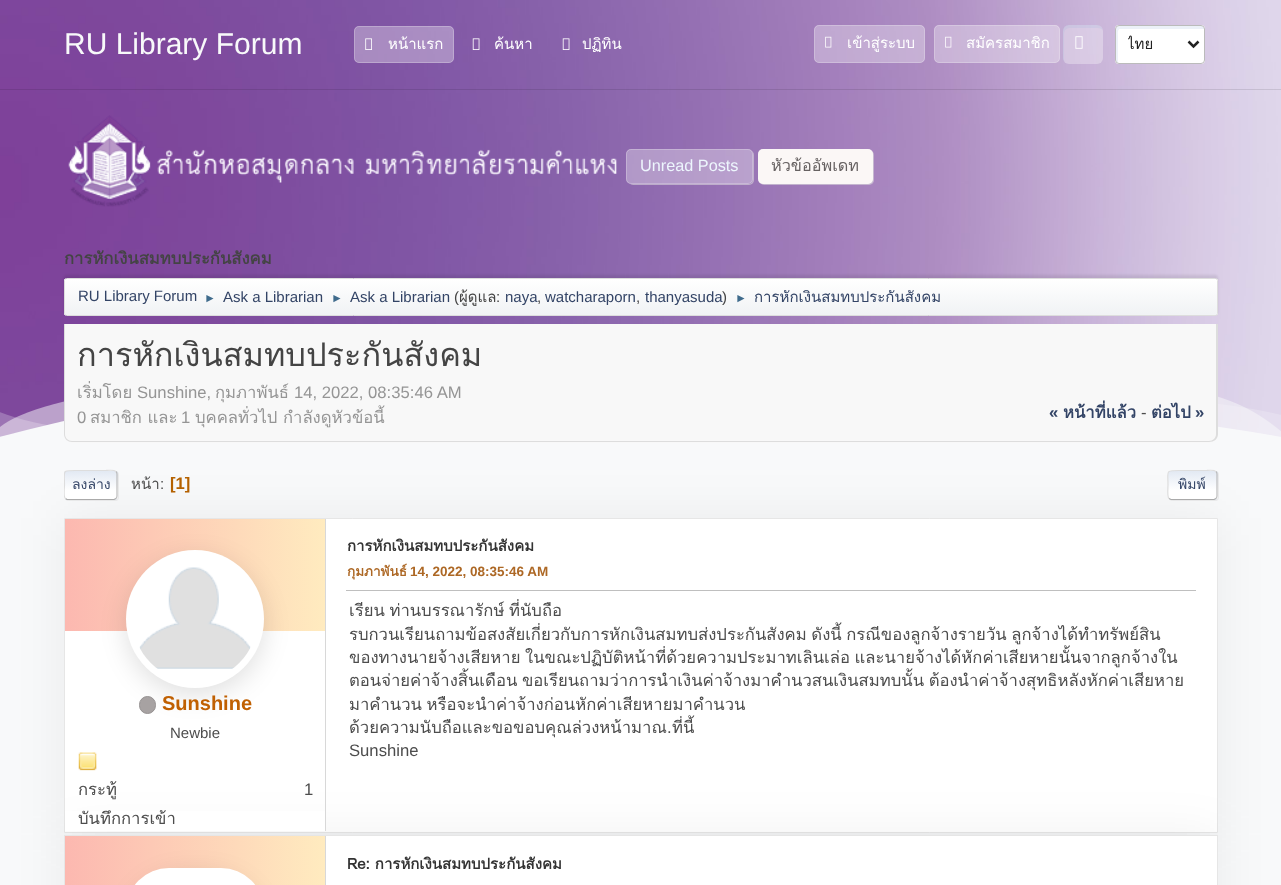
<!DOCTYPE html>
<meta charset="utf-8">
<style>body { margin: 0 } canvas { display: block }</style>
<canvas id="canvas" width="1281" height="885"></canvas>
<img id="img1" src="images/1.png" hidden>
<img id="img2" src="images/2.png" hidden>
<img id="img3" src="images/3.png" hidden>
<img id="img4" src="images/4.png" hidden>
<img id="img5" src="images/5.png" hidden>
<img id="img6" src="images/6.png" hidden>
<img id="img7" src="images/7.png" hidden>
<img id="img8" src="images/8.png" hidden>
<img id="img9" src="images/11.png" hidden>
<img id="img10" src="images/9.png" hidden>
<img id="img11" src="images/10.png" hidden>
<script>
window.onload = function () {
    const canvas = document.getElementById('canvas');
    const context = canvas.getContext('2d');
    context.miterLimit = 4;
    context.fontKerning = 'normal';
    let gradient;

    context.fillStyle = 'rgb(248, 249, 250)';
    context.fillRect(0, 0, 1281, 885);
    context.drawImage(document.getElementById('img1'), 0, 0, 1281, 437);
    context.fillStyle = 'rgba(0, 0, 0, 0.1)';
    context.fillRect(0, 89, 1281, 1);
    context.fillStyle = 'rgba(255, 255, 255, 0.32)';
    context.beginPath();
    context.roundRect(354, 26, 100, 37, 5);
    context.fill();
    context.beginPath();
    context.roundRect(354.5, 26.5, 99, 36, 4.5);
    context.strokeStyle = 'rgba(246, 246, 246, 0.26)';
    context.stroke();
    context.drawImage(document.getElementById('img2'), 365, 38, 7, 12);
    context.drawImage(document.getElementById('img3'), 472, 38, 8, 12);
    context.drawImage(document.getElementById('img4'), 562, 38, 8, 12);
    context.beginPath();
    context.roundRect(814, 25, 111, 38, 5);
    context.fill();
    context.beginPath();
    context.roundRect(814.5, 25.5, 110, 37, 4.5);
    context.stroke();
    context.drawImage(document.getElementById('img5'), 825, 36, 7, 12);
    context.beginPath();
    context.roundRect(934, 25, 126, 38, 5);
    context.fill();
    context.beginPath();
    context.roundRect(934.5, 25.5, 125, 37, 4.5);
    context.stroke();
    context.drawImage(document.getElementById('img6'), 945, 36, 7, 12);
    context.beginPath();
    context.roundRect(1063, 25, 40, 39, 6);
    context.fill();
    context.fillStyle = 'rgba(160, 187, 221, 0.2)';
    context.beginPath();
    context.moveTo(1070, 28);
    context.lineTo(1098, 28);
    context.bezierCurveTo(1100, 28, 1102, 29, 1103, 30.5);
    context.bezierCurveTo(1102.5, 27.5, 1100, 25, 1097, 25);
    context.lineTo(1069, 25);
    context.bezierCurveTo(1065.5, 25, 1063, 27.5, 1063, 31);
    context.lineTo(1063, 58);
    context.bezierCurveTo(1063, 59.5, 1063.5, 60.5, 1064.5, 62);
    context.lineTo(1064, 60);
    context.lineTo(1064, 34);
    context.bezierCurveTo(1064, 30, 1067, 28, 1070, 28);
    context.closePath();
    context.fill();
    context.drawImage(document.getElementById('img7'), 1075, 36, 8, 13);
    context.fillStyle = 'rgb(255, 255, 255)';
    context.beginPath();
    context.roundRect(1115, 25, 90, 39, 4);
    context.fill();
    context.fillStyle = 'rgb(236, 241, 248)';
    context.beginPath();
    context.moveTo(1120, 29);
    context.lineTo(1202, 29);
    context.lineTo(1204, 29);
    context.lineTo(1204, 28);
    context.bezierCurveTo(1204, 27, 1203, 26, 1202, 26);
    context.lineTo(1118, 26);
    context.bezierCurveTo(1117, 26, 1116, 27, 1116, 28);
    context.lineTo(1116, 60);
    context.bezierCurveTo(1116, 62, 1117, 63, 1118, 63);
    context.lineTo(1118, 36);
    context.bezierCurveTo(1118, 35, 1117, 29, 1120, 29);
    context.closePath();
    context.fill();
    context.beginPath();
    context.roundRect(1115.5, 25.5, 89, 38, 3.5);
    context.strokeStyle = 'rgb(187, 187, 187)';
    context.stroke();
    context.beginPath();
    context.moveTo(1188.5, 41.5);
    context.lineTo(1193.5, 46.5);
    context.lineTo(1198.5, 41.5);
    context.strokeStyle = 'rgb(34, 34, 34)';
    context.lineWidth = 2.5;
    context.stroke();
    context.drawImage(document.getElementById('img8'), 68, 115, 549, 92);
    context.save();
    context.beginPath();
    context.moveTo(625, 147);
    context.lineTo(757, 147);
    context.lineTo(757, 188);
    context.lineTo(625, 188);
    context.closePath();
    context.moveTo(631, 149);
    context.lineTo(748, 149);
    context.bezierCurveTo(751, 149, 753, 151, 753, 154);
    context.lineTo(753, 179);
    context.bezierCurveTo(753, 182, 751, 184, 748, 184);
    context.lineTo(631, 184);
    context.bezierCurveTo(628, 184, 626, 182, 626, 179);
    context.lineTo(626, 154);
    context.bezierCurveTo(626, 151, 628, 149, 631, 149);
    context.closePath();
    context.clip('evenodd');
    context.fillStyle = 'rgba(221, 221, 221, 0.57)';
    context.filter = 'blur(0.5px)';
    context.beginPath();
    context.roundRect(628, 150, 126, 35, 5);
    context.fill();
    context.filter = 'none';
    context.restore();
    context.fillStyle = 'rgba(255, 255, 255, 0.32)';
    context.beginPath();
    context.roundRect(626, 149, 127, 35, 5);
    context.fill();
    context.beginPath();
    context.roundRect(626.5, 149.5, 126, 34, 4.5);
    context.strokeStyle = 'rgba(246, 246, 246, 0.26)';
    context.lineWidth = 1;
    context.stroke();
    context.fillStyle = 'rgba(221, 221, 221, 0.57)';
    context.filter = 'blur(0.5px)';
    context.beginPath();
    context.roundRect(759, 150, 115, 35, 5);
    context.fill();
    context.filter = 'none';
    context.fillStyle = 'rgb(251, 247, 246)';
    context.beginPath();
    context.roundRect(758, 149, 115, 35, 5);
    context.fill();
    context.beginPath();
    context.roundRect(758.5, 149.5, 114, 34, 4.5);
    context.stroke();
    context.fillStyle = 'rgba(0, 0, 0, 0.08)';
    context.filter = 'blur(1px)';
    context.beginPath();
    context.roundRect(64, 275, 1154, 39, 2.5);
    context.fill();
    context.filter = 'none';
    context.save();
    context.beginPath();
    context.roundRect(64, 278, 1154, 38, 2.5);
    context.clip();
    gradient = context.createLinearGradient(641, 279, 641, 315);
    gradient.addColorStop(0, 'rgb(255, 255, 255)');
    gradient.addColorStop(0.95, 'rgb(241, 243, 245)');
    context.fillStyle = gradient;
    context.fillRect(64, 279, 1154, 36);
    context.restore();
    context.beginPath();
    context.roundRect(64.5, 278.5, 1153, 37, 2);
    context.strokeStyle = 'rgb(221, 221, 221)';
    context.stroke();
    context.fillStyle = 'rgba(0, 0, 0, 0.06)';
    context.filter = 'blur(25px)';
    context.beginPath();
    context.rect(64, 518, 1154, 315);
    context.fill();
    context.filter = 'none';
    context.drawImage(document.getElementById('img9'), 0, 396, 1281, 42);
    context.fillStyle = 'rgb(248, 248, 248)';
    context.beginPath();
    context.roundRect(64, 324, 1154, 119, [0, 0, 9, 9]);
    context.fill();
    context.fillStyle = 'rgb(221, 221, 221)';
    context.beginPath();
    context.moveTo(64, 324);
    context.lineTo(1218, 324);
    context.lineTo(1218, 434);
    context.bezierCurveTo(1218, 439, 1214, 442, 1209, 442);
    context.lineTo(72, 442);
    context.bezierCurveTo(68, 442, 64, 439, 64, 434);
    context.closePath();
    context.moveTo(65, 324);
    context.lineTo(1216, 324);
    context.lineTo(1216, 434);
    context.bezierCurveTo(1216, 438, 1213, 441, 1209, 441);
    context.lineTo(72, 441);
    context.bezierCurveTo(68, 441, 65, 438, 65, 434);
    context.closePath();
    context.fill('evenodd');
    context.fillStyle = 'rgba(221, 221, 221, 0.57)';
    context.filter = 'blur(0.5px)';
    context.beginPath();
    context.roundRect(65, 471, 54, 30, 4);
    context.fill();
    context.filter = 'none';
    context.save();
    context.beginPath();
    context.roundRect(64, 470, 54, 30, 4);
    context.clip();
    gradient = context.createLinearGradient(91, 444, 91, 471);
    gradient.addColorStop(0, 'rgb(226, 233, 243)');
    gradient.addColorStop(0.7, 'rgb(255, 255, 255)');
    context.fillStyle = gradient;
    context.fillRect(64, 470, 54, 1);
    gradient = context.createLinearGradient(91, 471, 91, 499);
    gradient.addColorStop(0, 'rgb(226, 233, 243)');
    gradient.addColorStop(0.7, 'rgb(255, 255, 255)');
    context.fillStyle = gradient;
    context.fillRect(64, 471, 54, 28);
    gradient = context.createLinearGradient(91, 499, 91, 526);
    gradient.addColorStop(0, 'rgb(226, 233, 243)');
    gradient.addColorStop(0.7, 'rgb(255, 255, 255)');
    context.fillStyle = gradient;
    context.fillRect(64, 499, 54, 1);
    context.restore();
    context.beginPath();
    context.moveTo(116, 471.5);
    context.bezierCurveTo(116.5, 472, 117, 473, 117, 474);
    context.lineTo(117, 496);
    context.bezierCurveTo(117, 497, 116.5, 498, 116, 498.5);
    context.strokeStyle = 'rgb(187, 187, 187)';
    context.lineWidth = 1.2;
    context.stroke();
    context.beginPath();
    context.moveTo(116, 498.5);
    context.lineTo(114, 499.5);
    context.lineTo(67, 499.5);
    context.lineTo(65.5, 498.5);
    context.strokeStyle = 'rgb(170, 170, 170)';
    context.stroke();
    context.save();
    context.beginPath();
    context.rect(64, 461, 1154, 48);
    context.clip();
    context.beginPath();
    context.moveTo(65.5, 498.5);
    context.bezierCurveTo(63, 496.5, 64.5, 487.5, 64.5, 485);
    context.bezierCurveTo(64.5, 470.5, 61.5, 470.5, 75, 470.5);
    context.lineTo(106, 470.5);
    context.bezierCurveTo(106.5, 470.5, 114, 469.5, 116, 471.5);
    context.strokeStyle = 'rgb(221, 221, 221)';
    context.stroke();
    context.restore();
    context.filter = 'blur(0.5px)';
    context.beginPath();
    context.roundRect(1169, 471, 50, 30, 4);
    context.fill();
    context.filter = 'none';
    context.save();
    context.beginPath();
    context.roundRect(1168, 470, 50, 30, 4);
    context.clip();
    gradient = context.createLinearGradient(1193, 444, 1193, 471);
    gradient.addColorStop(0, 'rgb(226, 233, 243)');
    gradient.addColorStop(0.7, 'rgb(255, 255, 255)');
    context.fillStyle = gradient;
    context.fillRect(1168, 470, 50, 1);
    gradient = context.createLinearGradient(1193, 471, 1193, 499);
    gradient.addColorStop(0, 'rgb(226, 233, 243)');
    gradient.addColorStop(0.7, 'rgb(255, 255, 255)');
    context.fillStyle = gradient;
    context.fillRect(1168, 471, 50, 28);
    gradient = context.createLinearGradient(1193, 499, 1193, 526);
    gradient.addColorStop(0, 'rgb(226, 233, 243)');
    gradient.addColorStop(0.7, 'rgb(255, 255, 255)');
    context.fillStyle = gradient;
    context.fillRect(1168, 499, 50, 1);
    context.restore();
    context.beginPath();
    context.moveTo(1216, 471.5);
    context.bezierCurveTo(1216.5, 472, 1217, 473, 1217, 474);
    context.lineTo(1217, 496);
    context.bezierCurveTo(1217, 497, 1216.5, 498, 1216, 498.5);
    context.strokeStyle = 'rgb(187, 187, 187)';
    context.stroke();
    context.beginPath();
    context.moveTo(1216, 498.5);
    context.lineTo(1214, 499.5);
    context.lineTo(1171, 499.5);
    context.lineTo(1169, 498.5);
    context.strokeStyle = 'rgb(170, 170, 170)';
    context.stroke();
    context.beginPath();
    context.moveTo(1169, 498.5);
    context.bezierCurveTo(1167, 496.5, 1168, 487.5, 1168, 485);
    context.bezierCurveTo(1168, 471, 1165, 470.5, 1178.5, 470.5);
    context.lineTo(1206.5, 470.5);
    context.bezierCurveTo(1207.5, 470.5, 1214, 469.5, 1216, 471.5);
    context.strokeStyle = 'rgb(221, 221, 221)';
    context.stroke();
    context.fillStyle = 'rgb(255, 255, 255)';
    context.beginPath();
    context.rect(64.5, 518.5, 1153, 314);
    context.fill();
    context.strokeStyle = 'rgb(230, 230, 230)';
    context.lineWidth = 1;
    context.stroke();
    context.fillStyle = 'rgba(0, 0, 0, 0.06)';
    context.filter = 'blur(25px)';
    context.beginPath();
    context.rect(64, 835, 1154, 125);
    context.fill();
    context.filter = 'none';
    context.fillStyle = 'rgb(255, 255, 255)';
    context.fillRect(65, 811, 260, 20);
    gradient = context.createLinearGradient(65, 575, 325, 575);
    gradient.addColorStop(0, 'rgb(252, 184, 176)');
    gradient.addColorStop(1, 'rgb(255, 235, 191)');
    context.fillStyle = gradient;
    context.fillRect(65, 519, 260, 112);
    context.fillStyle = 'rgba(0, 0, 0, 0.12)';
    context.filter = 'blur(13px)';
    context.beginPath();
    context.roundRect(126, 558, 138, 137, 68.5);
    context.fill();
    context.filter = 'none';
    context.fillStyle = 'rgb(255, 255, 255)';
    context.beginPath();
    context.arc(195, 619, 69, 0, 2 * Math.PI);
    context.fill();
    context.drawImage(document.getElementById('img10'), 139, 567, 112, 102);
    context.fillStyle = 'rgb(167, 162, 162)';
    context.beginPath();
    context.roundRect(139.5, 696.5, 16, 17, 8);
    context.fill();
    context.strokeStyle = 'rgb(150, 146, 146)';
    context.stroke();
    context.drawImage(document.getElementById('img11'), 78, 752, 19, 19);
    context.fillStyle = 'rgb(216, 216, 216)';
    context.fillRect(325, 519, 1, 312);
    context.fillStyle = 'rgb(191, 191, 191)';
    context.fillRect(346, 590, 850, 1);
    context.fillStyle = 'rgb(255, 255, 255)';
    context.fillRect(326, 836, 891, 49);
    context.strokeStyle = 'rgb(230, 230, 230)';
    context.strokeRect(64.5, 835.5, 1153, 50);
    gradient = context.createLinearGradient(65, 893, 325, 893);
    gradient.addColorStop(0, 'rgb(252, 184, 176)');
    gradient.addColorStop(1, 'rgb(255, 235, 191)');
    context.fillStyle = gradient;
    context.fillRect(65, 836, 260, 49);
    context.fillStyle = 'rgba(0, 0, 0, 0.12)';
    context.filter = 'blur(13px)';
    context.beginPath();
    context.roundRect(126, 875, 138, 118, 69);
    context.fill();
    context.filter = 'none';
    context.fillStyle = 'rgb(255, 255, 255)';
    context.beginPath();
    context.roundRect(126, 868, 138, 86, 68.5);
    context.fill();
    context.fillStyle = 'rgb(216, 216, 216)';
    context.fillRect(325, 836, 1, 49);
    context.font = '30px Liberation Sans';
    context.fillStyle = 'rgb(248, 249, 250)';
    context.fillText('RU Library Forum', 64, 54);
    context.font = '15px Loma';
    context.fillStyle = 'rgb(255, 255, 255)';
    context.fillText('หน้าแรก', 388, 49);
    context.fillText('ค้นหา', 494, 49);
    context.fillText('ปฏิทิน', 582, 49);
    context.fillText('เข้าสู่ระบบ', 847, 48);
    context.fillText('สมัครสมาชิก', 966, 48);
    context.save();
    context.beginPath();
    context.rect(1128, 34, 50, 20);
    context.clip();
    context.fillStyle = 'rgb(34, 34, 34)';
    context.fillText('ไทย', 1127, 49);
    context.restore();
    context.font = '16.25px Liberation Sans';
    context.fillStyle = 'rgb(237, 246, 253)';
    context.fillText('Unread Posts', 640, 171);
    context.font = '16.25px Loma';
    context.fillStyle = 'rgb(102, 97, 97)';
    context.fillText('หัวข้ออัพเดท', 771, 171);
    context.font = 'bold 16.67px Loma';
    context.fillStyle = 'rgb(68, 68, 68)';
    context.fillText('การหักเงินสมทบประกันสังคม', 64, 264);
    context.font = '15px Liberation Sans';
    context.fillStyle = 'rgb(51, 68, 102)';
    context.fillText('RU Library Forum', 78, 301);
    context.font = '12px Liberation Sans';
    context.fillStyle = 'rgb(63, 107, 140)';
    context.fillText('►', 204, 302);
    context.font = '15px Liberation Sans';
    context.fillStyle = 'rgb(51, 68, 102)';
    context.fillText('Ask a Librarian', 223, 302);
    context.font = '12px Liberation Sans';
    context.fillStyle = 'rgb(63, 107, 140)';
    context.fillText('►', 331, 302);
    context.font = '15px Liberation Sans';
    context.fillStyle = 'rgb(51, 68, 102)';
    context.fillText('Ask a Librarian', 350, 302);
    context.fillStyle = 'rgb(68, 68, 68)';
    context.fillText('(', 454, 302);
    context.font = '15px Loma';
    context.fillText('ผู้ดูแล', 459, 302);
    context.font = '15px Liberation Sans';
    context.fillText(':', 496, 302);
    context.fillStyle = 'rgb(51, 68, 102)';
    context.fillText('naya', 505, 302);
    context.fillStyle = 'rgb(68, 68, 68)';
    context.fillText(',', 537, 302);
    context.fillStyle = 'rgb(51, 68, 102)';
    context.fillText('watcharaporn', 545, 302);
    context.fillStyle = 'rgb(68, 68, 68)';
    context.fillText(',', 636, 302);
    context.fillStyle = 'rgb(51, 68, 102)';
    context.fillText('thanyasuda', 645, 302);
    context.fillStyle = 'rgb(68, 68, 68)';
    context.fillText(')', 722, 302);
    context.font = '12px Liberation Sans';
    context.fillStyle = 'rgb(63, 107, 140)';
    context.fillText('►', 735, 302);
    context.font = '15px Loma';
    context.fillStyle = 'rgb(51, 68, 102)';
    context.fillText('การหักเงินสมทบประกันสังคม', 754, 302);
    context.font = '32.5px Loma';
    context.fillStyle = 'rgb(68, 68, 68)';
    context.fillText('การหักเงินสมทบประกันสังคม', 77, 366);
    context.font = '16.67px Loma';
    context.fillStyle = 'rgb(149, 149, 149)';
    context.fillText('เริ่มโดย', 77, 398);
    context.font = '16.67px Liberation Sans';
    context.fillText('Sunshine,', 137, 398);
    context.font = '16.67px Loma';
    context.fillText('กุมภาพันธ์', 215, 398);
    context.font = '16.67px Liberation Sans';
    context.fillText('14, 2022, 08:35:46 AM', 294, 398);
    context.fillText('0', 77, 423);
    context.font = '16.67px Loma';
    context.fillText('สมาชิก และ', 90, 423);
    context.font = '16.67px Liberation Sans';
    context.fillText('1', 181, 423);
    context.font = '16.67px Loma';
    context.fillText('บุคคลทั่วไป กำลังดูหัวข้อนี้', 195, 423);
    context.font = 'bold 16.67px Liberation Sans';
    context.fillStyle = 'rgb(51, 68, 102)';
    context.fillText('«', 1049, 418);
    context.font = 'bold 16.67px Loma';
    context.fillText('หน้าที่แล้ว', 1063, 418);
    context.font = '16.67px Liberation Sans';
    context.fillStyle = 'rgb(77, 77, 77)';
    context.fillText('-', 1141, 418);
    context.font = 'bold 16.67px Loma';
    context.fillStyle = 'rgb(51, 68, 102)';
    context.fillText('ต่อไป', 1151, 418);
    context.font = 'bold 16.67px Liberation Sans';
    context.fillText('»', 1195, 418);
    context.font = '14px Loma';
    context.fillText('ลงล่าง', 72, 489);
    context.font = '15px Loma';
    context.fillStyle = 'rgb(77, 77, 77)';
    context.fillText('หน้า', 131, 489);
    context.font = '15px Liberation Sans';
    context.fillText(':', 160, 489);
    context.font = 'bold 16.67px Liberation Sans';
    context.fillStyle = 'rgb(180, 97, 0)';
    context.fillText('[1]', 170, 489);
    context.font = '14px Loma';
    context.fillStyle = 'rgb(51, 68, 102)';
    context.fillText('พิมพ์', 1178, 489);
    context.font = 'bold 20px Liberation Sans';
    context.fillStyle = 'rgb(192, 96, 2)';
    context.fillText('Sunshine', 162, 710);
    context.font = '15px Liberation Sans';
    context.fillStyle = 'rgb(77, 77, 77)';
    context.fillText('Newbie', 170, 738);
    context.font = '16.67px Loma';
    context.fillText('กระทู้', 78, 795);
    context.font = '16.67px Liberation Sans';
    context.fillText('1', 304, 795);
    context.font = '16.67px Loma';
    context.fillText('บันทึกการเข้า', 78, 824);
    context.font = 'bold 15px Loma';
    context.fillStyle = 'rgb(51, 51, 51)';
    context.fillText('การหักเงินสมทบประกันสังคม', 347, 551);
    context.font = 'bold 13.5px Loma';
    context.fillStyle = 'rgb(173, 104, 37)';
    context.fillText('กุมภาพันธ์', 347, 576);
    context.font = 'bold 13.5px Liberation Sans';
    context.fillText('14, 2022, 08:35:46 AM', 410, 576);
    context.wordSpacing = '-1px';
    context.font = '16.67px Loma';
    context.fillStyle = 'rgb(77, 77, 77)';
    context.fillText('เรียน ท่านบรรณารักษ์ ที่นับถือ', 349, 616);
    context.fillText('รบกวนเรียนถามข้อสงสัยเกี่ยวกับการหักเงินสมทบส่งประกันสังคม ดังนี้ กรณีของลูกจ้างรายวัน ลูกจ้างได้ทำทรัพย์สิน', 349, 640);
    context.fillText('ของทางนายจ้างเสียหาย ในขณะปฏิบัติหน้าที่ด้วยความประมาทเลินเล่อ และนายจ้างได้หักค่าเสียหายนั้นจากลูกจ้างใน', 349, 663);
    context.fillText('ตอนจ่ายค่าจ้างสิ้นเดือน ขอเรียนถามว่าการนำเงินค่าจ้างมาคำนวสนเงินสมทบนั้น ต้องนำค่าจ้างสุทธิหลังหักค่าเสียหาย', 349, 686);
    context.fillText('มาคำนวน หรือจะนำค่าจ้างก่อนหักค่าเสียหายมาคำนวน', 349, 710);
    context.save();
    context.beginPath();
    context.rect(346, 589, 850, 179);
    context.clip();
    context.wordSpacing = '0px';
    context.fillText('ด้วยความนับถือและขอขอบคุณล่วงหน้ามาณ', 349, 733);
    context.restore();
    context.wordSpacing = '0px';
    context.font = '16.67px Liberation Sans';
    context.fillText('.', 667, 733);
    context.font = '16.67px Loma';
    context.fillText('ที่นี้', 672, 733);
    context.font = '16.67px Liberation Sans';
    context.fillText('Sunshine', 349, 756);
    context.font = 'bold 15px Loma';
    context.fillStyle = 'rgb(51, 51, 51)';
    context.fillText('Re: การหักเงินสมทบประกันสังคม', 347, 869);
};
</script>
